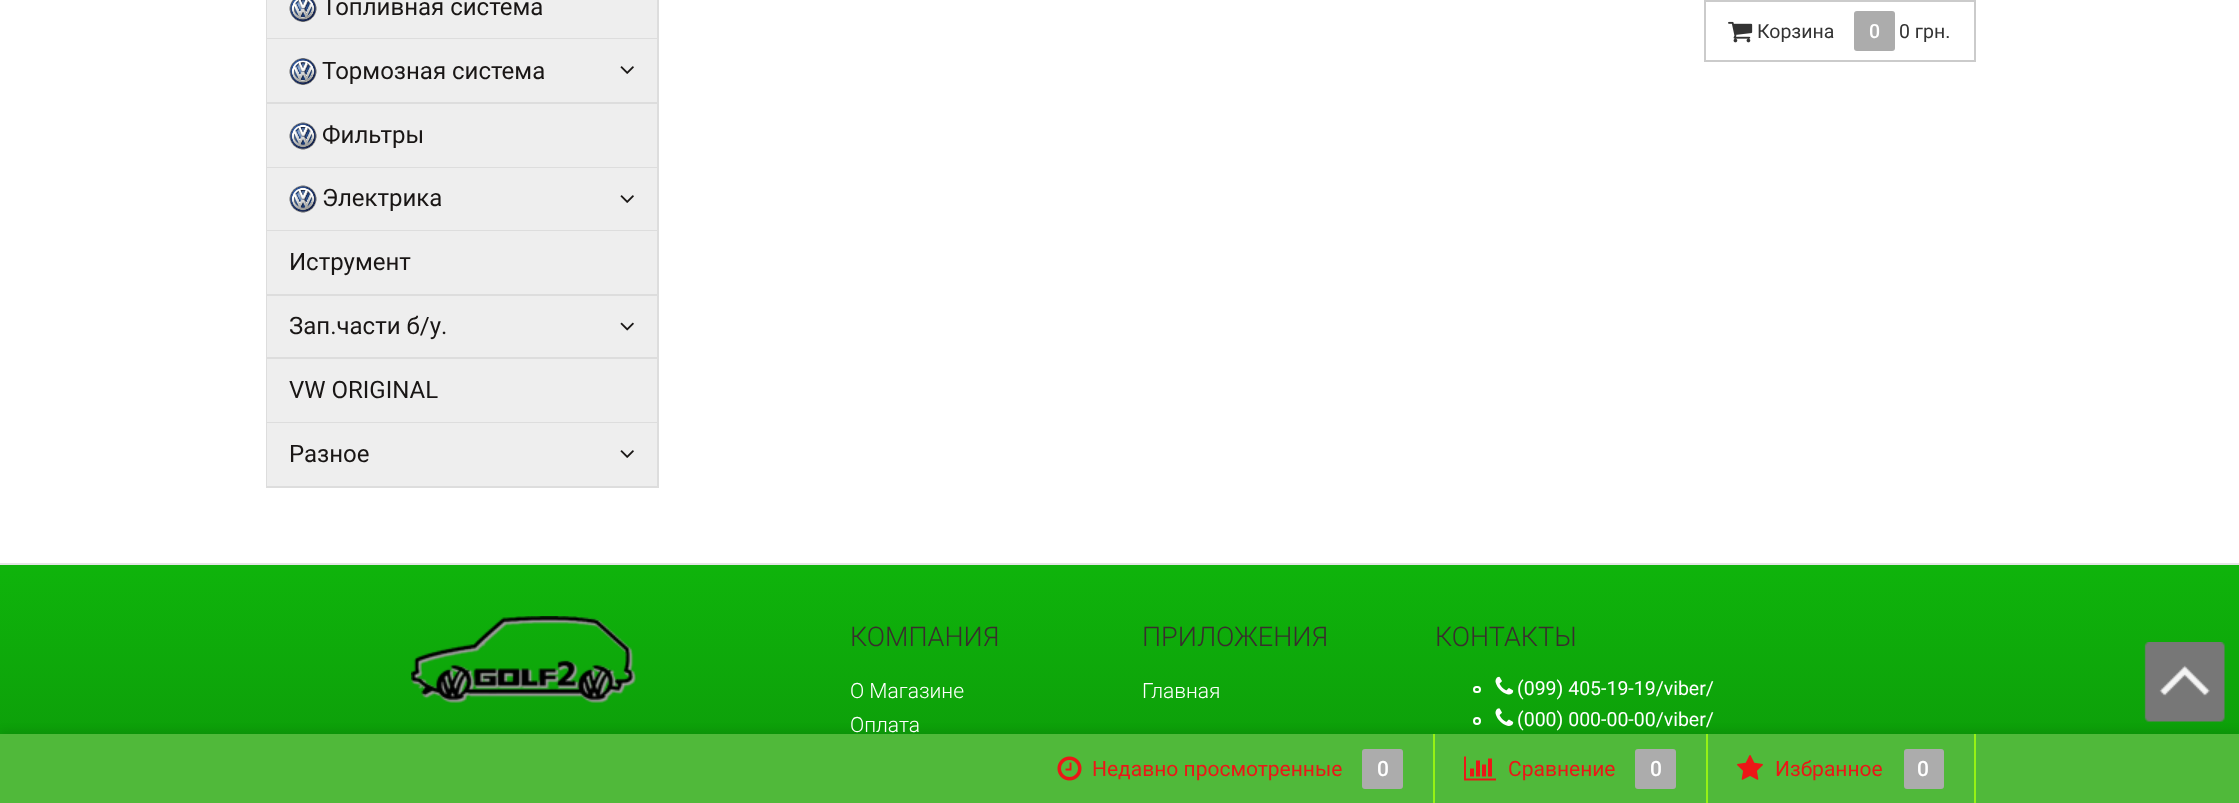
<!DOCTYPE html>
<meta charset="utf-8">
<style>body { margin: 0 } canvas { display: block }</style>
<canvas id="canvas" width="2239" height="803"></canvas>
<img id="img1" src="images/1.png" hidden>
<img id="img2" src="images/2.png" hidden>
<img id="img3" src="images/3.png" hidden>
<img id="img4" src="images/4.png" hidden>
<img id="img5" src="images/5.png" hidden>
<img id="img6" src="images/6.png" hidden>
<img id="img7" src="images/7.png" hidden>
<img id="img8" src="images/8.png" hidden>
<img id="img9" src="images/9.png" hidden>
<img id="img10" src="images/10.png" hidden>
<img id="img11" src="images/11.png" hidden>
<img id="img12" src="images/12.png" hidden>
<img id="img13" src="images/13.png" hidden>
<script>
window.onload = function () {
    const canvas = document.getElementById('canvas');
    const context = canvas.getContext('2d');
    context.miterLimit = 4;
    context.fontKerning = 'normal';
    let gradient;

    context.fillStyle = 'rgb(255, 255, 255)';
    context.fillRect(0, 0, 2239, 803);
    context.strokeStyle = 'rgb(221, 221, 221)';
    context.lineWidth = 2;
    context.strokeRect(267, -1, 391, 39);
    context.fillStyle = 'rgb(238, 238, 238)';
    context.fillRect(267, 0, 390, 38);
    context.drawImage(document.getElementById('img1'), 289, 0, 28, 22);
    context.strokeRect(267, 39, 391, 64);
    context.fillRect(267, 39, 390, 63);
    context.drawImage(document.getElementById('img2'), 289, 58, 28, 27);
    context.drawImage(document.getElementById('img3'), 620, 66, 14, 8);
    context.strokeRect(267, 103, 391, 64);
    context.fillRect(267, 104, 390, 63);
    context.drawImage(document.getElementById('img4'), 289, 122, 28, 28);
    context.strokeRect(267, 168, 391, 62);
    context.fillRect(267, 168, 390, 62);
    context.drawImage(document.getElementById('img4'), 289, 185, 28, 28);
    context.drawImage(document.getElementById('img3'), 620, 195, 14, 8);
    context.strokeRect(267, 231, 391, 64);
    context.fillRect(267, 231, 390, 63);
    context.strokeRect(267, 295, 391, 63);
    context.fillRect(267, 296, 390, 61);
    context.drawImage(document.getElementById('img5'), 620, 322, 14, 9);
    context.strokeRect(267, 358, 391, 64);
    context.fillRect(267, 359, 390, 63);
    context.strokeRect(267, 423, 391, 64);
    context.fillRect(267, 423, 390, 63);
    context.drawImage(document.getElementById('img3'), 620, 450, 14, 8);
    context.strokeStyle = 'rgb(203, 203, 203)';
    context.strokeRect(1705, 1, 270, 60);
    context.drawImage(document.getElementById('img6'), 1728, 21, 25, 22);
    context.fillStyle = 'rgb(172, 172, 172)';
    context.beginPath();
    context.roundRect(1854, 11, 41, 40, 3);
    context.fill();
    gradient = context.createLinearGradient(1120, 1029, 1120, 564);
    gradient.addColorStop(0, 'rgb(10, 126, 7)');
    gradient.addColorStop(1, 'rgb(15, 180, 11)');
    context.fillStyle = gradient;
    context.fillRect(0, 565, 2239, 169);
    context.fillStyle = 'rgb(229, 229, 229)';
    context.fillRect(0, 563, 2239, 2);
    context.drawImage(document.getElementById('img7'), 411, 616, 225, 87);
    context.beginPath();
    context.roundRect(1474, 687, 6, 5, 2.5);
    context.strokeStyle = 'rgb(255, 255, 255)';
    context.stroke();
    context.drawImage(document.getElementById('img8'), 1495, 676, 19, 19);
    context.beginPath();
    context.arc(1477, 721, 3, 0, 2 * Math.PI);
    context.stroke();
    context.drawImage(document.getElementById('img9'), 1495, 708, 19, 18);
    context.drawImage(document.getElementById('img10'), 2144, 642, 81, 80);
    context.fillStyle = 'rgba(0, 0, 0, 0.1)';
    context.filter = 'blur(4px)';
    context.beginPath();
    context.rect(0, 731, 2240, 70);
    context.fill();
    context.filter = 'none';
    context.fillStyle = 'rgb(80, 185, 58)';
    context.fillRect(0, 734, 2239, 69);
    context.fillStyle = 'rgb(150, 241, 21)';
    context.fillRect(1433, 734, 2, 69);
    context.drawImage(document.getElementById('img11'), 1057, 756, 25, 25);
    context.fillStyle = 'rgb(172, 172, 172)';
    context.beginPath();
    context.roundRect(1362, 749, 41, 40, 3);
    context.fill();
    context.fillStyle = 'rgb(150, 241, 21)';
    context.fillRect(1706, 734, 2, 69);
    context.drawImage(document.getElementById('img12'), 1464, 756, 32, 25);
    context.fillStyle = 'rgb(172, 172, 172)';
    context.beginPath();
    context.roundRect(1635, 749, 41, 40, 3);
    context.fill();
    context.fillStyle = 'rgb(150, 241, 21)';
    context.fillRect(1974, 734, 2, 69);
    context.drawImage(document.getElementById('img13'), 1737, 755, 26, 25);
    context.fillStyle = 'rgb(172, 172, 172)';
    context.beginPath();
    context.roundRect(1904, 749, 40, 40, 3);
    context.fill();
    context.font = '24px Roboto';
    context.fillStyle = 'rgb(25, 22, 21)';
    context.fillText('Топливная система', 322, 15);
    context.fillText('Тормозная система', 322, 79);
    context.fillText('Фильтры', 322, 143);
    context.fillText('Электрика', 322, 206);
    context.fillText('Иструмент', 289, 270);
    context.fillText('Зап.части б/у.', 289, 334);
    context.fillText('VW ORIGINAL', 289, 398);
    context.fillText('Разное', 289, 462);
    context.font = '19.5px Roboto';
    context.fillStyle = 'rgb(51, 51, 51)';
    context.fillText('Корзина', 1757, 38);
    context.font = '500 19.5px Roboto';
    context.fillStyle = 'rgb(255, 255, 255)';
    context.fillText('0', 1869, 38);
    context.font = '19.5px Roboto';
    context.fillStyle = 'rgb(51, 51, 51)';
    context.fillText('0 грн.', 1899, 38);
    context.font = '300 27px Roboto';
    context.fillStyle = 'rgb(57, 46, 46)';
    context.fillText('КОМПАНИЯ', 850, 646);
    context.font = '300 21px Roboto';
    context.fillStyle = 'rgb(255, 255, 255)';
    context.fillText('О Магазине', 850, 698);
    context.fillText('Оплата', 850, 732);
    context.font = '300 27px Roboto';
    context.fillStyle = 'rgb(57, 46, 46)';
    context.fillText('ПРИЛОЖЕНИЯ', 1142, 646);
    context.font = '300 21px Roboto';
    context.fillStyle = 'rgb(255, 255, 255)';
    context.fillText('Главная', 1142, 698);
    context.font = '300 27px Roboto';
    context.fillStyle = 'rgb(57, 46, 46)';
    context.fillText('КОНТАКТЫ', 1435, 646);
    context.font = '19.5px Roboto';
    context.fillStyle = 'rgb(255, 255, 255)';
    context.fillText('(099) 405-19-19/viber/', 1517, 695);
    context.fillText('(000) 000-00-00/viber/', 1517, 726);
    context.font = '21px Roboto';
    context.fillStyle = 'rgb(235, 23, 23)';
    context.fillText('Недавно просмотренные', 1092, 776);
    context.font = '500 21px Roboto';
    context.fillStyle = 'rgb(255, 255, 255)';
    context.fillText('0', 1377, 776);
    context.font = '21px Roboto';
    context.fillStyle = 'rgb(235, 23, 23)';
    context.fillText('Сравнение', 1508, 776);
    context.font = '500 21px Roboto';
    context.fillStyle = 'rgb(255, 255, 255)';
    context.fillText('0', 1650, 776);
    context.font = '21px Roboto';
    context.fillStyle = 'rgb(235, 23, 23)';
    context.fillText('Избранное', 1775, 776);
    context.font = '500 21px Roboto';
    context.fillStyle = 'rgb(255, 255, 255)';
    context.fillText('0', 1917, 776);
};
</script>
